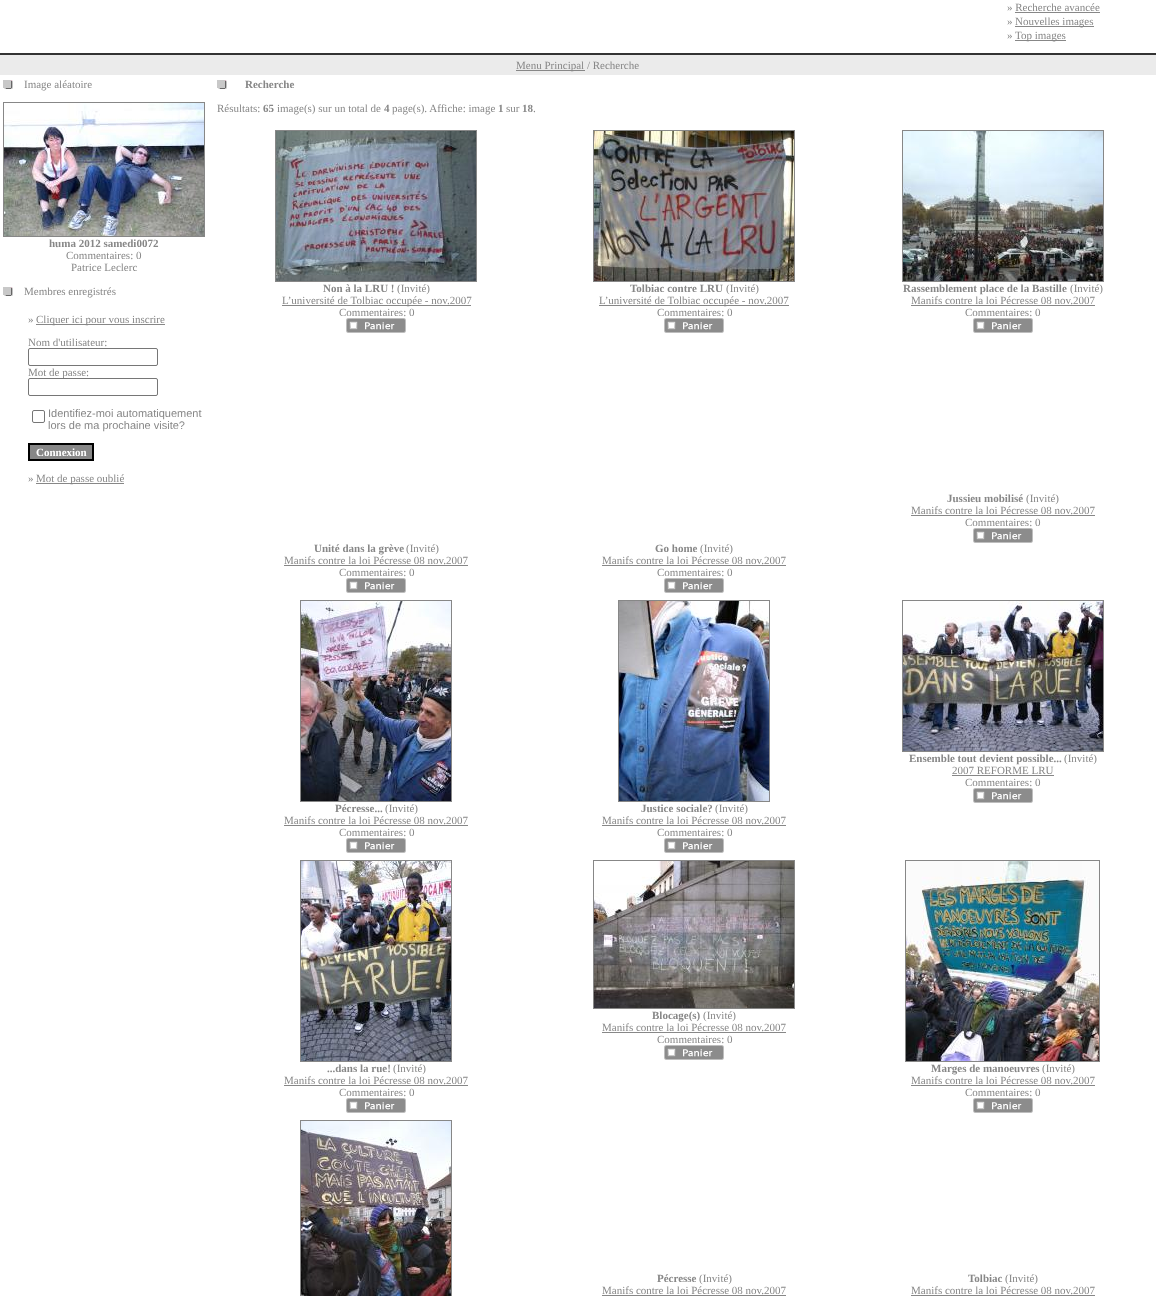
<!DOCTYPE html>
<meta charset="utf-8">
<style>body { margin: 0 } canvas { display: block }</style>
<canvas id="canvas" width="1156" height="1296"></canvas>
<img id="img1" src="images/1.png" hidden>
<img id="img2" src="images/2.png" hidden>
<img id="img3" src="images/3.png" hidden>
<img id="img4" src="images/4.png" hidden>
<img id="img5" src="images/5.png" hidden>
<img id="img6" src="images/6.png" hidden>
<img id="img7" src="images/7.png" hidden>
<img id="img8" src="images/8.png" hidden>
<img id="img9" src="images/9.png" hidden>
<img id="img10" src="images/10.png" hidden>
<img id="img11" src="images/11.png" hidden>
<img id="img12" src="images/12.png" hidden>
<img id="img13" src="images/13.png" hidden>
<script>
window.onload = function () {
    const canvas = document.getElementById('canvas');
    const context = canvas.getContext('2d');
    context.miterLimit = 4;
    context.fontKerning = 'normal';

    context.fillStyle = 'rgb(255, 255, 255)';
    context.fillRect(0, 0, 1156, 1296);
    context.fillStyle = 'rgb(135, 135, 135)';
    context.fillRect(1015, 12, 85, 1);
    context.fillRect(1015, 26, 79, 1);
    context.fillRect(1015, 40, 51, 1);
    context.fillStyle = 'rgb(51, 51, 51)';
    context.fillRect(0, 53, 1156, 2);
    context.fillStyle = 'rgb(235, 235, 235)';
    context.fillRect(0, 55, 1156, 20);
    context.fillStyle = 'rgb(135, 135, 135)';
    context.fillRect(516, 70, 69, 1);
    context.drawImage(document.getElementById('img1'), 3, 80, 10, 9);
    context.strokeStyle = 'rgb(135, 135, 135)';
    context.strokeRect(3.5, 102.5, 201, 134);
    context.drawImage(document.getElementById('img2'), 4, 103, 200, 133);
    context.drawImage(document.getElementById('img1'), 3, 287, 10, 9);
    context.fillRect(36, 324, 129, 1);
    context.beginPath();
    context.roundRect(28.5, 348.5, 129, 17, 1.5);
    context.strokeStyle = 'rgb(118, 118, 118)';
    context.stroke();
    context.beginPath();
    context.roundRect(32.5, 410.5, 12, 12, 1.5);
    context.stroke();
    context.beginPath();
    context.rect(29, 444, 64, 16);
    context.fill();
    context.strokeStyle = 'rgb(0, 0, 0)';
    context.lineWidth = 2;
    context.stroke();
    context.fillRect(36, 483, 88, 1);
    context.drawImage(document.getElementById('img1'), 217, 80, 10, 9);
    context.strokeStyle = 'rgb(135, 135, 135)';
    context.lineWidth = 1;
    context.strokeRect(275.5, 130.5, 201, 151);
    context.drawImage(document.getElementById('img3'), 276, 131, 200, 150);
    context.fillRect(282, 305, 189, 1);
    context.drawImage(document.getElementById('img4'), 346, 318, 60, 15);
    context.strokeRect(593.5, 130.5, 201, 151);
    context.drawImage(document.getElementById('img5'), 594, 131, 200, 150);
    context.fillRect(599, 305, 190, 1);
    context.drawImage(document.getElementById('img4'), 664, 318, 60, 15);
    context.strokeRect(902.5, 130.5, 201, 151);
    context.drawImage(document.getElementById('img6'), 903, 131, 200, 150);
    context.fillRect(911, 305, 184, 1);
    context.drawImage(document.getElementById('img4'), 973, 318, 60, 15);
    context.fillRect(911, 515, 184, 1);
    context.drawImage(document.getElementById('img4'), 973, 528, 60, 15);
    context.fillRect(284, 565, 184, 1);
    context.drawImage(document.getElementById('img4'), 346, 578, 60, 15);
    context.fillRect(602, 565, 184, 1);
    context.drawImage(document.getElementById('img4'), 664, 578, 60, 15);
    context.strokeRect(902.5, 600.5, 201, 151);
    context.drawImage(document.getElementById('img7'), 903, 601, 200, 150);
    context.fillRect(952, 775, 102, 1);
    context.drawImage(document.getElementById('img4'), 973, 788, 60, 15);
    context.strokeRect(300.5, 600.5, 151, 201);
    context.drawImage(document.getElementById('img8'), 301, 601, 150, 200);
    context.fillRect(284, 825, 184, 1);
    context.drawImage(document.getElementById('img4'), 346, 838, 60, 15);
    context.strokeRect(618.5, 600.5, 151, 201);
    context.drawImage(document.getElementById('img9'), 619, 601, 150, 200);
    context.fillRect(602, 825, 184, 1);
    context.drawImage(document.getElementById('img4'), 664, 838, 60, 15);
    context.strokeRect(593.5, 860.5, 201, 148);
    context.drawImage(document.getElementById('img10'), 594, 861, 200, 147);
    context.fillRect(602, 1032, 184, 1);
    context.drawImage(document.getElementById('img4'), 664, 1045, 60, 15);
    context.strokeRect(300.5, 860.5, 151, 201);
    context.drawImage(document.getElementById('img11'), 301, 861, 150, 200);
    context.fillRect(284, 1085, 184, 1);
    context.drawImage(document.getElementById('img4'), 346, 1098, 60, 15);
    context.strokeRect(905.5, 860.5, 194, 201);
    context.drawImage(document.getElementById('img12'), 906, 861, 193, 200);
    context.fillRect(911, 1085, 184, 1);
    context.drawImage(document.getElementById('img4'), 973, 1098, 60, 15);
    context.strokeRect(300.5, 1120.5, 151, 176);
    context.drawImage(document.getElementById('img13'), 301, 1121, 150, 175);
    context.fillRect(602, 1295, 184, 1);
    context.fillRect(911, 1295, 184, 1);
    context.font = '11px Liberation Serif';
    context.fillText('» Recherche avancée', 1007, 11);
    context.fillText('»', 1007, 25);
    context.fillText('Nouvelles images', 1015, 25);
    context.fillText('»', 1007, 39);
    context.fillText('Top images', 1015, 39);
    context.fillText('Menu Principal / Recherche', 516, 69);
    context.fillText('Image aléatoire', 24, 88);
    context.font = 'bold 11px Liberation Serif';
    context.fillText('huma 2012 samedi0072', 49, 247);
    context.font = '11px Liberation Serif';
    context.fillText('Commentaires: 0', 66, 259);
    context.fillText('Patrice Leclerc', 71, 271);
    context.fillText('Membres enregistrés', 24, 295);
    context.fillText('»', 28, 323);
    context.fillText('Cliquer ici pour vous inscrire', 36, 323);
    context.fillText('Nom d\'utilisateur:', 28, 346);
    context.fillText('Mot de passe:', 28, 376);
    context.fillStyle = 'rgb(255, 255, 255)';
    context.beginPath();
    context.roundRect(28.5, 378.5, 129, 17, 1.5);
    context.fill();
    context.strokeStyle = 'rgb(118, 118, 118)';
    context.stroke();
    context.font = '11px Liberation Sans';
    context.fillStyle = 'rgb(135, 135, 135)';
    context.fillText('Identifiez-moi automatiquement', 48, 417);
    context.fillText('lors de ma prochaine visite?', 48, 429);
    context.font = 'bold 11px Liberation Serif';
    context.fillStyle = 'rgb(255, 255, 255)';
    context.fillText('Connexion', 36, 456);
    context.font = '11px Liberation Serif';
    context.fillStyle = 'rgb(135, 135, 135)';
    context.fillText('»', 28, 482);
    context.fillText('Mot de passe oublié', 36, 482);
    context.font = 'bold 11px Liberation Serif';
    context.fillText('Recherche', 245, 88);
    context.font = '11px Liberation Serif';
    context.fillText('Résultats:', 217, 112);
    context.font = 'bold 11px Liberation Serif';
    context.fillText('65', 263, 112);
    context.font = '11px Liberation Serif';
    context.fillText('image(s) sur un total de', 277, 112);
    context.font = 'bold 11px Liberation Serif';
    context.fillText('4', 384, 112);
    context.font = '11px Liberation Serif';
    context.fillText('page(s). Affiche: image', 392, 112);
    context.font = 'bold 11px Liberation Serif';
    context.fillText('1', 498, 112);
    context.font = '11px Liberation Serif';
    context.fillText('sur', 506, 112);
    context.font = 'bold 11px Liberation Serif';
    context.fillText('18', 522, 112);
    context.font = '11px Liberation Serif';
    context.fillText('.', 533, 112);
    context.font = 'bold 11px Liberation Serif';
    context.fillText('Non à la LRU !', 323, 292);
    context.font = '11px Liberation Serif';
    context.fillText('(Invité)', 397, 292);
    context.fillText('L’université de Tolbiac occupée - nov.2007', 282, 304);
    context.fillText('Commentaires: 0', 339, 316);
    context.font = 'bold 11px Liberation Serif';
    context.fillText('Tolbiac contre LRU', 630, 292);
    context.font = '11px Liberation Serif';
    context.fillText('(Invité)', 726, 292);
    context.fillText('L’université de Tolbiac occupée - nov.2007', 599, 304);
    context.fillText('Commentaires: 0', 657, 316);
    context.font = 'bold 11px Liberation Serif';
    context.fillText('Rassemblement place de la Bastille', 903, 292);
    context.font = '11px Liberation Serif';
    context.fillText('(Invité)', 1070, 292);
    context.fillText('Manifs contre la loi Pécresse 08 nov.2007', 911, 304);
    context.fillText('Commentaires: 0', 965, 316);
    context.font = 'bold 11px Liberation Serif';
    context.fillText('Jussieu mobilisé', 947, 502);
    context.font = '11px Liberation Serif';
    context.fillText('(Invité)', 1026, 502);
    context.fillText('Manifs contre la loi Pécresse 08 nov.2007', 911, 514);
    context.fillText('Commentaires: 0', 965, 526);
    context.font = 'bold 11px Liberation Serif';
    context.fillText('Unité dans la grève', 314, 552);
    context.font = '11px Liberation Serif';
    context.fillText('(Invité)', 406, 552);
    context.fillText('Manifs contre la loi Pécresse 08 nov.2007', 284, 564);
    context.fillText('Commentaires: 0', 339, 576);
    context.font = 'bold 11px Liberation Serif';
    context.fillText('Go home', 655, 552);
    context.font = '11px Liberation Serif';
    context.fillText('(Invité)', 700, 552);
    context.fillText('Manifs contre la loi Pécresse 08 nov.2007', 602, 564);
    context.fillText('Commentaires: 0', 657, 576);
    context.font = 'bold 11px Liberation Serif';
    context.fillText('Ensemble tout devient possible...', 909, 762);
    context.font = '11px Liberation Serif';
    context.fillText('(Invité)', 1064, 762);
    context.fillText('2007 REFORME LRU', 952, 774);
    context.fillText('Commentaires: 0', 965, 786);
    context.font = 'bold 11px Liberation Serif';
    context.fillText('Pécresse...', 335, 812);
    context.font = '11px Liberation Serif';
    context.fillText('(Invité)', 385, 812);
    context.fillText('Manifs contre la loi Pécresse 08 nov.2007', 284, 824);
    context.fillText('Commentaires: 0', 339, 836);
    context.font = 'bold 11px Liberation Serif';
    context.fillText('Justice sociale?', 641, 812);
    context.font = '11px Liberation Serif';
    context.fillText('(Invité)', 715, 812);
    context.fillText('Manifs contre la loi Pécresse 08 nov.2007', 602, 824);
    context.fillText('Commentaires: 0', 657, 836);
    context.font = 'bold 11px Liberation Serif';
    context.fillText('Blocage(s)', 652, 1019);
    context.font = '11px Liberation Serif';
    context.fillText('(Invité)', 703, 1019);
    context.fillText('Manifs contre la loi Pécresse 08 nov.2007', 602, 1031);
    context.fillText('Commentaires: 0', 657, 1043);
    context.font = 'bold 11px Liberation Serif';
    context.fillText('...dans la rue!', 327, 1072);
    context.font = '11px Liberation Serif';
    context.fillText('(Invité)', 393, 1072);
    context.fillText('Manifs contre la loi Pécresse 08 nov.2007', 284, 1084);
    context.fillText('Commentaires: 0', 339, 1096);
    context.font = 'bold 11px Liberation Serif';
    context.fillText('Marges de manoeuvres', 931, 1072);
    context.font = '11px Liberation Serif';
    context.fillText('(Invité)', 1042, 1072);
    context.fillText('Manifs contre la loi Pécresse 08 nov.2007', 911, 1084);
    context.fillText('Commentaires: 0', 965, 1096);
    context.font = 'bold 11px Liberation Serif';
    context.fillText('Pécresse', 657, 1282);
    context.font = '11px Liberation Serif';
    context.fillText('(Invité)', 699, 1282);
    context.fillText('Manifs contre la loi Pécresse 08 nov.2007', 602, 1294);
    context.font = 'bold 11px Liberation Serif';
    context.fillText('Tolbiac', 968, 1282);
    context.font = '11px Liberation Serif';
    context.fillText('(Invité)', 1005, 1282);
    context.fillText('Manifs contre la loi Pécresse 08 nov.2007', 911, 1294);
};
</script>
